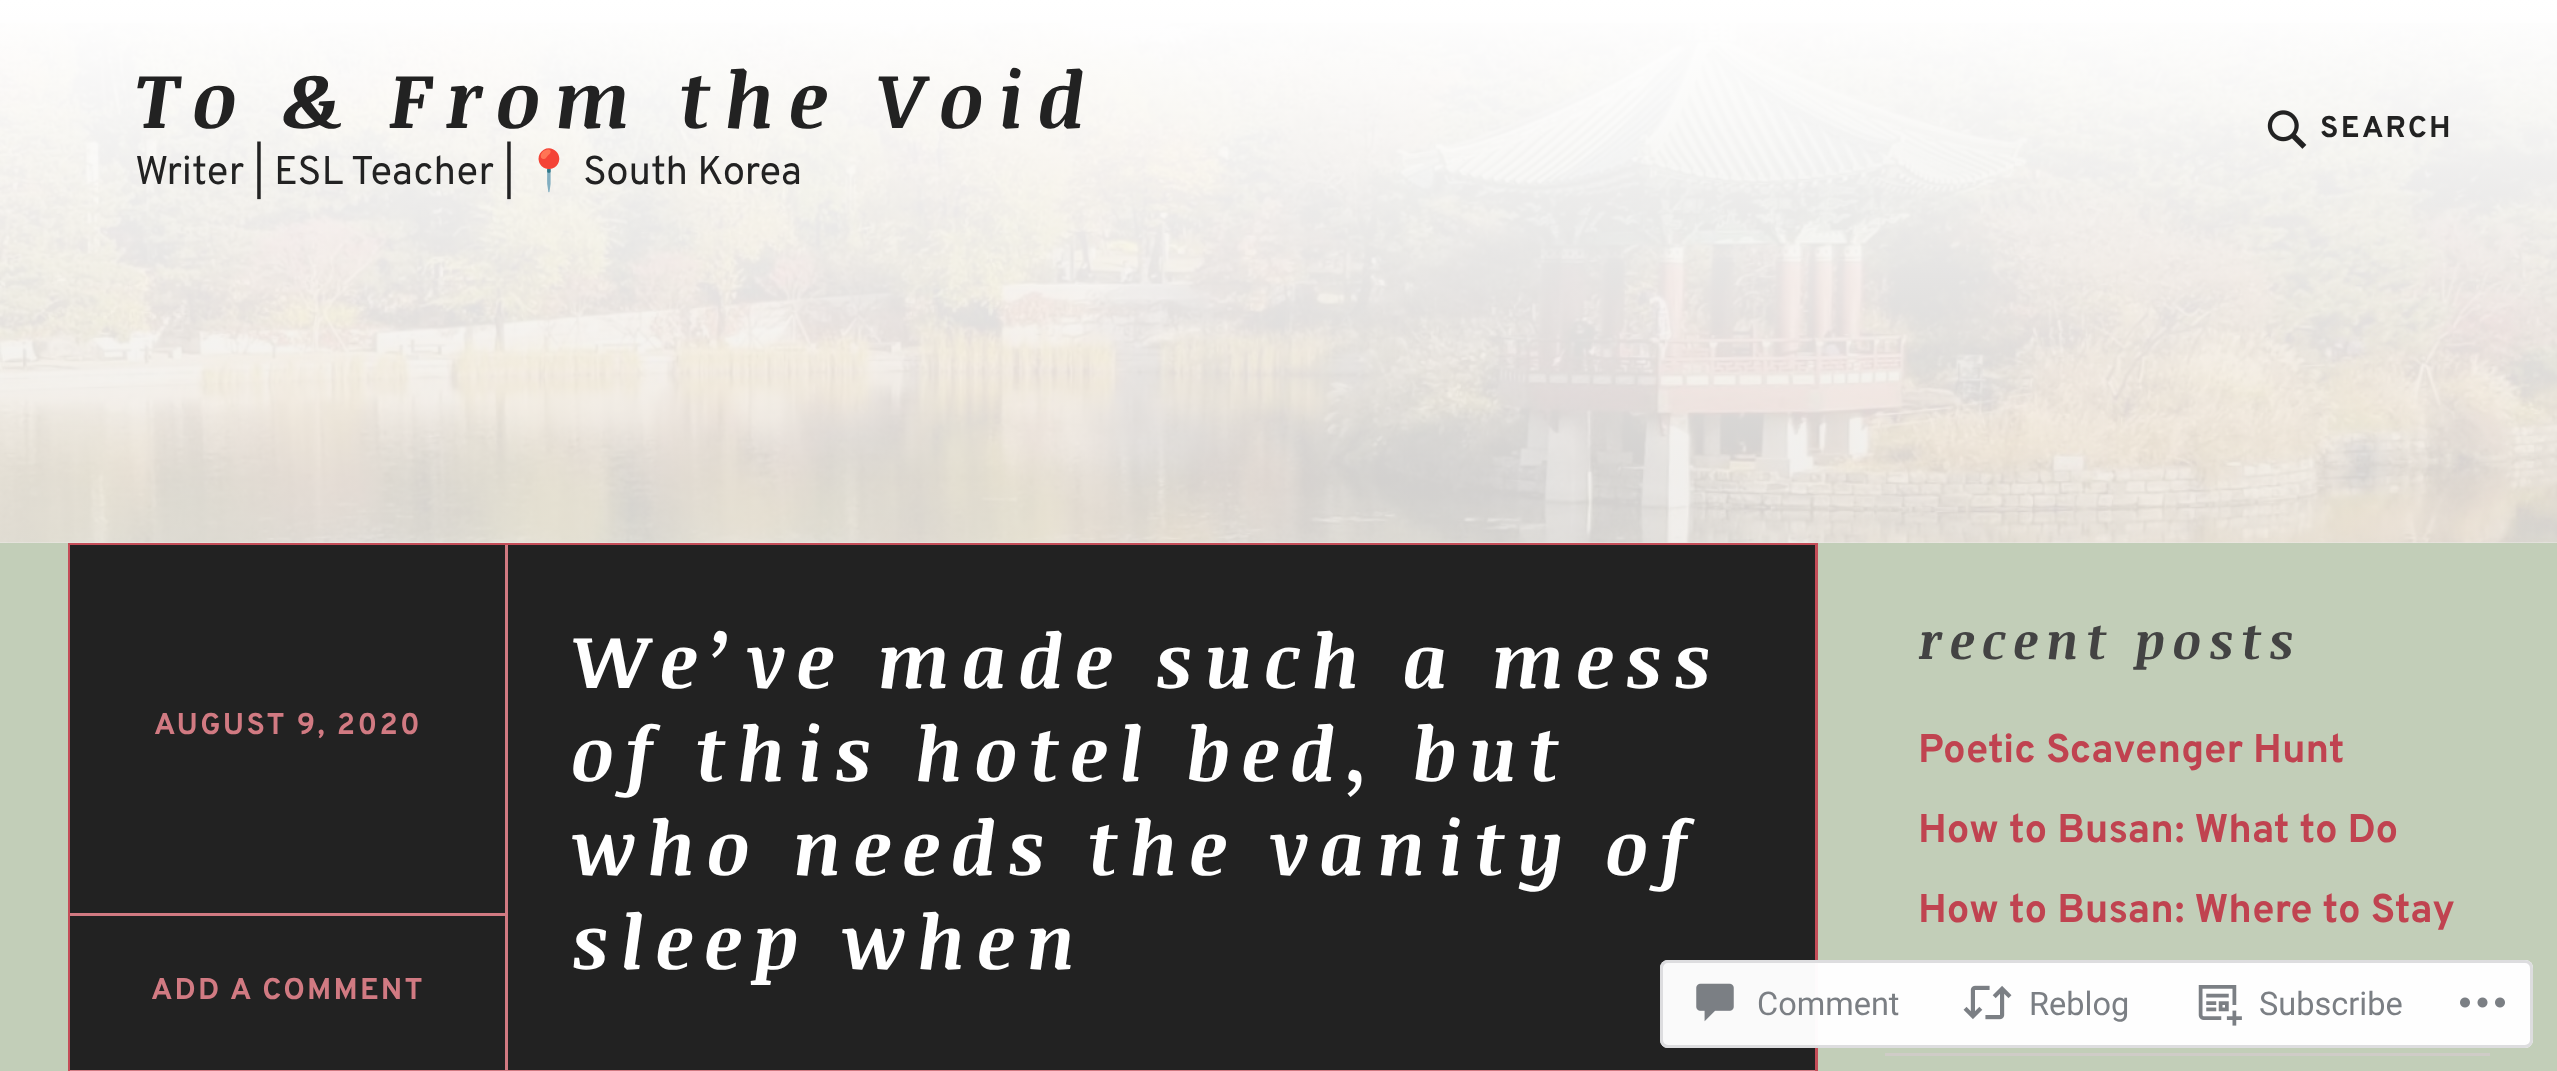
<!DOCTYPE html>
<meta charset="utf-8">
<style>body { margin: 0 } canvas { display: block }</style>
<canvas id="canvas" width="2557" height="1071"></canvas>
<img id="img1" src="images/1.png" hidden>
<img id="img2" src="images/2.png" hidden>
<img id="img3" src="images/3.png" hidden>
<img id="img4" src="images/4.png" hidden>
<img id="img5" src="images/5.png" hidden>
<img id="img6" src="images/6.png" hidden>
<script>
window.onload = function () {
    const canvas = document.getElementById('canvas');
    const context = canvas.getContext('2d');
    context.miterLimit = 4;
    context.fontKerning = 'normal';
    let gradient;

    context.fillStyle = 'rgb(194, 206, 184)';
    context.fillRect(0, 0, 2557, 1071);
    context.drawImage(document.getElementById('img1'), 0, 23, 2557, 520);
    gradient = context.createLinearGradient(1279, 0, 1279, 543);
    gradient.addColorStop(0, 'rgb(255, 255, 255)');
    gradient.addColorStop(0.88, 'rgba(240, 238, 236, 0.88)');
    context.fillStyle = gradient;
    context.fillRect(0, 0, 2557, 543);
    context.drawImage(document.getElementById('img2'), 2267, 110, 40, 39);
    context.strokeStyle = 'rgb(196, 77, 88)';
    context.lineWidth = 3;
    context.strokeRect(69.5, 544.5, 1747, 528);
    context.fillStyle = 'rgb(34, 34, 34)';
    context.fillRect(70, 545, 1745, 525);
    context.fillStyle = 'rgb(209, 122, 130)';
    context.fillRect(505, 545, 3, 526);
    context.fillRect(70, 913, 435, 3);
    context.fillRect(70, 1070, 1745, 1);
    context.fillStyle = 'rgb(207, 204, 199)';
    context.fillRect(1885, 1053, 605, 3);
    context.fillStyle = 'rgba(255, 255, 255, 0.98)';
    context.beginPath();
    context.roundRect(1660, 960, 873, 88, 8);
    context.fill();
    context.beginPath();
    context.roundRect(1661.5, 961.5, 870, 85, 6.5);
    context.strokeStyle = 'rgba(220, 220, 222, 0.98)';
    context.stroke();
    context.drawImage(document.getElementById('img3'), 1696, 983, 38, 39);
    context.drawImage(document.getElementById('img4'), 1963, 985, 49, 35);
    context.drawImage(document.getElementById('img5'), 2198, 985, 44, 41);
    context.drawImage(document.getElementById('img6'), 2460, 997, 45, 11);
    context.letterSpacing = '13.6px';
    context.font = 'italic bold 78px Noticia Text';
    context.fillStyle = 'rgb(34, 34, 34)';
    context.fillText('To & From the Void', 135, 128);
    context.letterSpacing = '0px';
    context.font = '40px Overpass';
    context.fillText('Writer | ESL Teacher |', 135, 184);
    context.font = '40px Noto Color Emoji';
    context.fillText('📍', 524, 184);
    context.font = '40px Overpass';
    context.fillText('South Korea', 583, 184);
    context.letterSpacing = '2.25px';
    context.font = 'bold 30px Overpass';
    context.fillText('SEARCH', 2320, 137);
    context.fillStyle = 'rgb(209, 122, 130)';
    context.fillText('AUGUST 9, 2020', 154, 734);
    context.fillText('ADD A COMMENT', 151, 999);
    context.letterSpacing = '11.25px';
    context.font = 'italic bold 75px Noticia Text';
    context.fillStyle = 'rgb(255, 255, 255)';
    context.fillText('We’ve made such a mess', 571, 688);
    context.fillText('of this hotel bed, but', 571, 781);
    context.fillText('who needs the vanity of', 571, 875);
    context.fillText('sleep when', 571, 969);
    context.letterSpacing = '7.5px';
    context.font = 'italic bold 50px Noticia Text';
    context.fillStyle = 'rgb(67, 67, 67)';
    context.fillText('recent posts', 1918, 659);
    context.letterSpacing = '0px';
    context.font = 'bold 40px Overpass';
    context.fillStyle = 'rgb(192, 67, 80)';
    context.fillText('Poetic Scavenger Hunt', 1918, 762);
    context.fillText('How to Busan: What to Do', 1918, 842);
    context.fillText('How to Busan: Where to Stay', 1918, 922);
    context.font = '32.5px Roboto';
    context.fillStyle = 'rgb(123, 127, 132)';
    context.fillText('Comment', 1757, 1015);
    context.fillText('Reblog', 2029, 1015);
    context.fillText('Subscribe', 2259, 1015);
};
</script>
